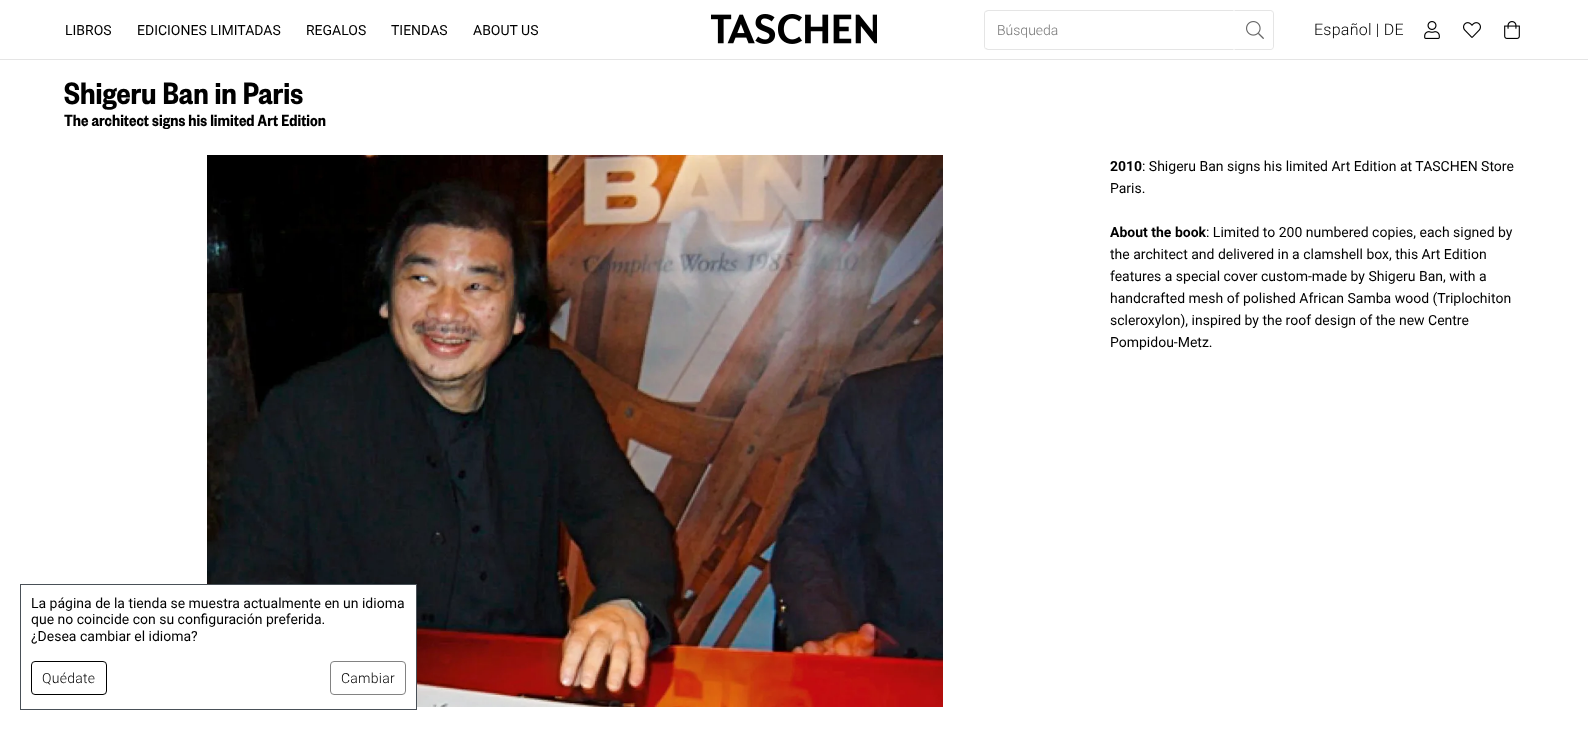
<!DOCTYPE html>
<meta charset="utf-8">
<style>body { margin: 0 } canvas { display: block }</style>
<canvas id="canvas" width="1588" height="730"></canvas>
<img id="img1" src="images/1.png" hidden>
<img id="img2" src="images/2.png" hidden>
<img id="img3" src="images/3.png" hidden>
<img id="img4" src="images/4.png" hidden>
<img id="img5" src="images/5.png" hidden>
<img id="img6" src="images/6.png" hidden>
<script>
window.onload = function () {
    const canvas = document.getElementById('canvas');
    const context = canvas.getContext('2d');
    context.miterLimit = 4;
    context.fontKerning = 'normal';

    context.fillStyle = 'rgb(255, 255, 255)';
    context.fillRect(0, 0, 1588, 730);
    context.fillStyle = 'rgb(229, 229, 229)';
    context.fillRect(0, 59, 1588, 1);
    context.drawImage(document.getElementById('img1'), 711, 14, 166, 30);
    context.beginPath();
    context.moveTo(988, 10);
    context.lineTo(985, 11);
    context.lineTo(986, 12);
    context.lineTo(988, 11);
    context.lineTo(1233, 11);
    context.lineTo(1234, 10);
    context.closePath();
    context.fill();
    context.beginPath();
    context.moveTo(1234, 50);
    context.lineTo(1233, 49);
    context.lineTo(988, 49);
    context.lineTo(986, 48);
    context.lineTo(985, 49);
    context.lineTo(988, 50);
    context.closePath();
    context.fill();
    context.beginPath();
    context.moveTo(984, 14);
    context.lineTo(984, 46);
    context.bezierCurveTo(984, 47, 984.5, 48, 985, 49);
    context.lineTo(986, 48);
    context.bezierCurveTo(985, 48, 985, 47, 985, 46);
    context.lineTo(985, 14);
    context.bezierCurveTo(985, 13, 985, 12, 986, 12);
    context.lineTo(985, 11);
    context.bezierCurveTo(984.5, 12, 984, 13, 984, 14);
    context.closePath();
    context.fill();
    context.beginPath();
    context.moveTo(1234, 10);
    context.lineTo(1235, 11);
    context.lineTo(1270, 11);
    context.bezierCurveTo(1271, 11, 1272, 11, 1272, 12);
    context.lineTo(1273, 11);
    context.bezierCurveTo(1272, 10.5, 1271, 10, 1270, 10);
    context.closePath();
    context.fill();
    context.beginPath();
    context.moveTo(1274, 46);
    context.lineTo(1274, 14);
    context.bezierCurveTo(1274, 13, 1273.5, 12, 1273, 11);
    context.lineTo(1272, 12);
    context.bezierCurveTo(1273, 12, 1273, 13, 1273, 14);
    context.lineTo(1273, 46);
    context.bezierCurveTo(1273, 47, 1273, 48, 1272, 48);
    context.lineTo(1273, 49);
    context.bezierCurveTo(1273.5, 48, 1274, 47, 1274, 46);
    context.closePath();
    context.fill();
    context.beginPath();
    context.moveTo(1270, 50);
    context.bezierCurveTo(1271, 50, 1272, 49.5, 1273, 49);
    context.lineTo(1272, 48);
    context.bezierCurveTo(1272, 49, 1271, 49, 1270, 49);
    context.lineTo(1235, 49);
    context.lineTo(1234, 50);
    context.closePath();
    context.fill();
    context.drawImage(document.getElementById('img2'), 1246, 21, 18, 18);
    context.drawImage(document.getElementById('img3'), 1424, 21, 16, 18);
    context.drawImage(document.getElementById('img4'), 1463, 22, 18, 16);
    context.drawImage(document.getElementById('img5'), 1504, 21, 16, 18);
    context.drawImage(document.getElementById('img6'), 207, 155, 736, 552);
    context.fillStyle = 'rgb(255, 255, 255)';
    context.fillRect(207, 585, 209, 122);
    context.strokeStyle = 'rgb(73, 80, 87)';
    context.strokeRect(20.5, 584.5, 396, 125);
    context.beginPath();
    context.roundRect(31.5, 661.5, 75, 33, 3.5);
    context.strokeStyle = 'rgb(0, 0, 0)';
    context.stroke();
    context.beginPath();
    context.roundRect(330.5, 661.5, 75, 33, 3.5);
    context.strokeStyle = 'rgb(130, 130, 130)';
    context.stroke();
    context.font = '14px Roboto';
    context.fillStyle = 'rgb(0, 0, 0)';
    context.fillText('LIBROS', 65, 35);
    context.fillText('EDICIONES LIMITADAS', 137, 35);
    context.fillText('REGALOS', 306, 35);
    context.fillText('TIENDAS', 391, 35);
    context.fillText('ABOUT US', 473, 35);
    context.font = '300 14px Roboto';
    context.fillStyle = 'rgb(117, 117, 117)';
    context.fillText('Búsqueda', 997, 35);
    context.letterSpacing = '0.25px';
    context.font = '300 16px Roboto';
    context.fillStyle = 'rgb(0, 0, 0)';
    context.fillText('Español | DE', 1314, 35);
    context.letterSpacing = '0px';
    context.font = '600 34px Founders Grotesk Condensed';
    context.fillText('Shigeru Ban in Paris', 64, 104);
    context.font = '600 18px Founders Grotesk Condensed';
    context.fillText('The architect signs his limited Art Edition', 64, 126);
    context.font = 'bold 14px Roboto';
    context.fillText('2010', 1110, 171);
    context.font = '14px Roboto';
    context.fillText(': Shigeru Ban signs his limited Art Edition at TASCHEN Store', 1142, 171);
    context.fillText('Paris.', 1110, 193);
    context.font = 'bold 14px Roboto';
    context.fillText('About the book', 1110, 237);
    context.font = '14px Roboto';
    context.fillText(': Limited to 200 numbered copies, each signed by', 1206, 237);
    context.fillText('the architect and delivered in a clamshell box, this Art Edition', 1110, 259);
    context.fillText('features a special cover custom-made by Shigeru Ban, with a', 1110, 281);
    context.fillText('handcrafted mesh of polished African Samba wood (Triplochiton', 1110, 303);
    context.fillText('scleroxylon), inspired by the roof design of the new Centre', 1110, 325);
    context.fillText('Pompidou-Metz.', 1110, 347);
    context.fillText('La página de la tienda se muestra actualmente en un idioma', 31, 608);
    context.fillText('que no coincide con su configuración preferida.', 31, 624);
    context.fillText('¿Desea cambiar el idioma?', 31, 641);
    context.letterSpacing = '0.25px';
    context.font = '300 14px Roboto';
    context.fillText('Quédate', 42, 683);
    context.fillText('Cambiar', 341, 683);
};
</script>
